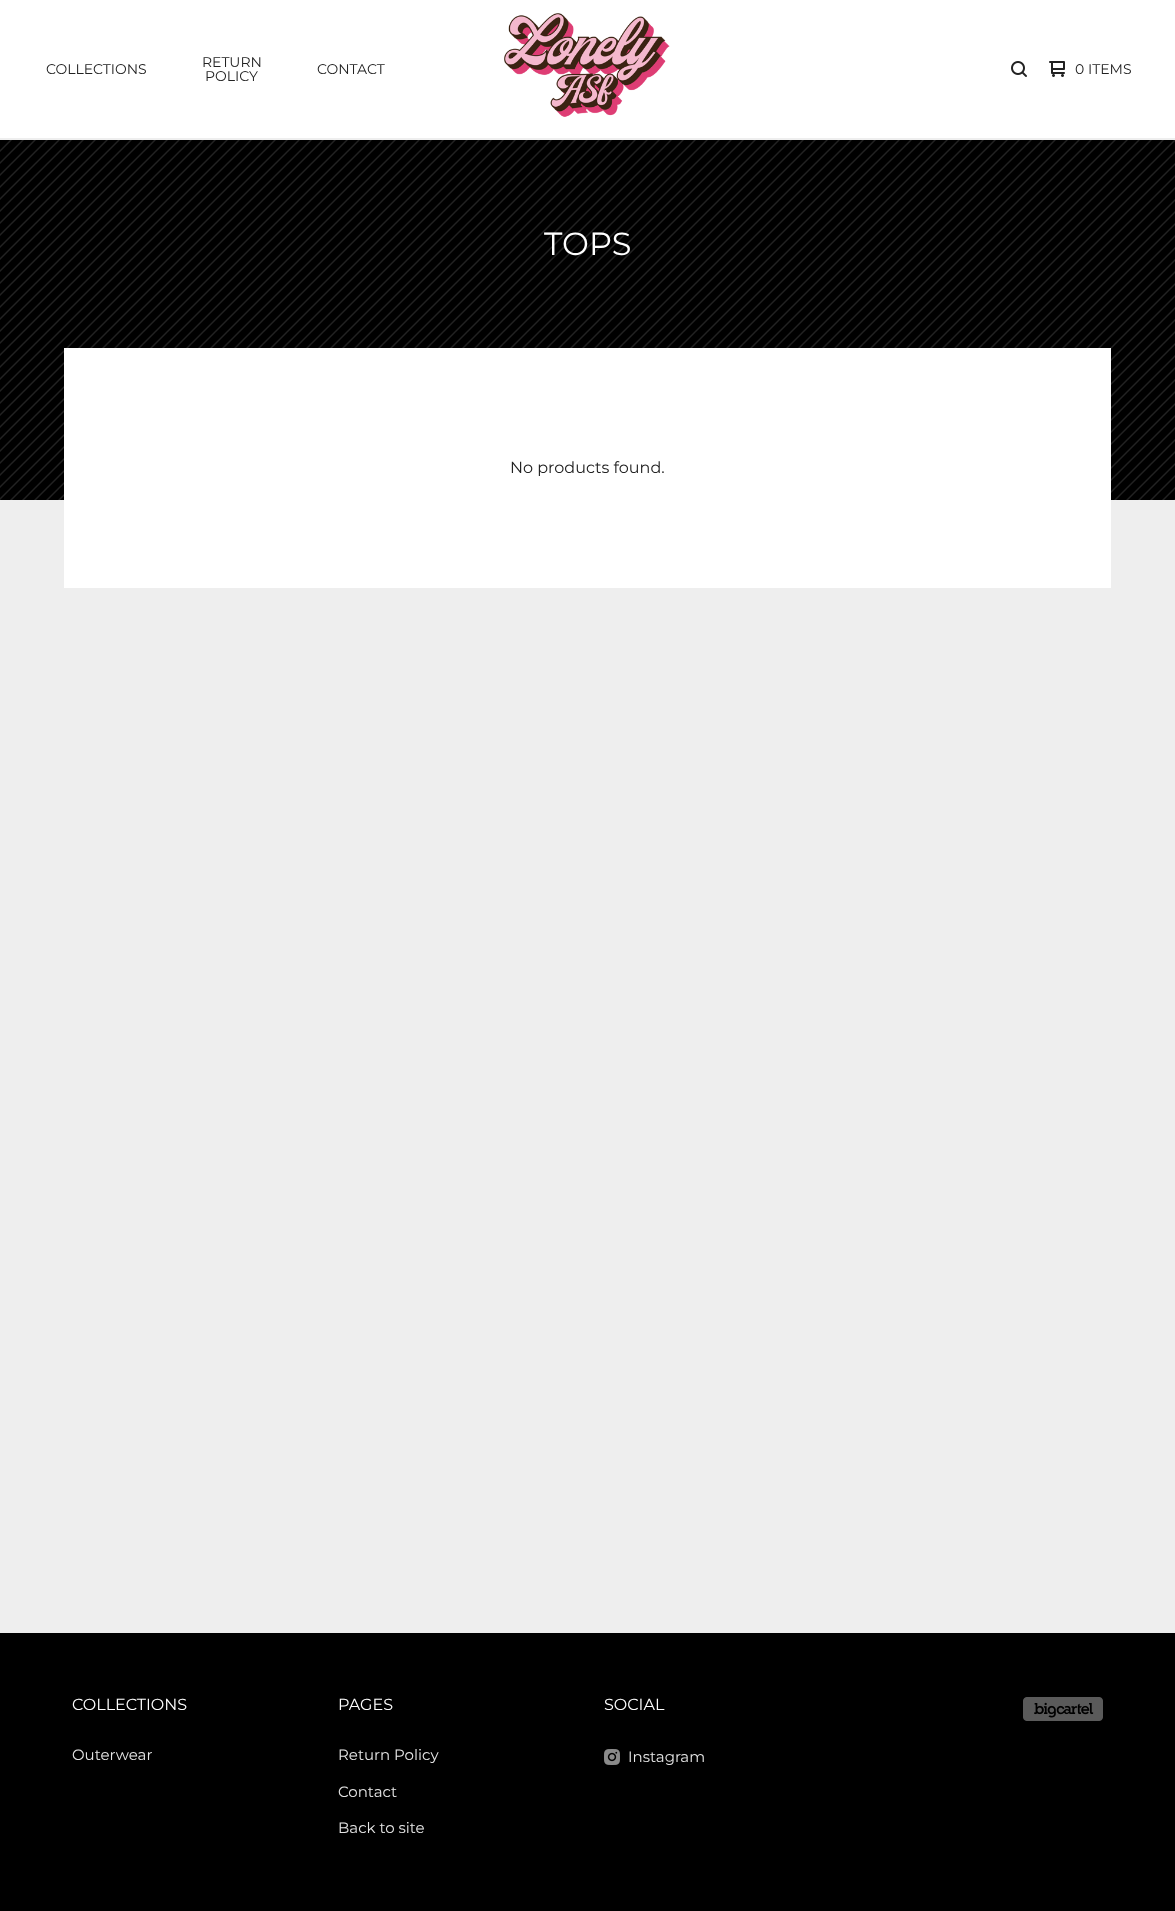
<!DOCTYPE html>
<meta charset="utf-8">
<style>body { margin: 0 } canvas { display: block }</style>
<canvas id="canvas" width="1175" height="1911"></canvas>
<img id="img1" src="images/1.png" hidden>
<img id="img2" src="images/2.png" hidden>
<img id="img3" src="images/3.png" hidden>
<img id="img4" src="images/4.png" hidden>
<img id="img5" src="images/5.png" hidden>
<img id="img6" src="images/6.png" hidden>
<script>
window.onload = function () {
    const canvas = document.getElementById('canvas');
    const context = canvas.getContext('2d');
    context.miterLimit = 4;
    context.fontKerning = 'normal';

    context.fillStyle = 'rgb(238, 238, 238)';
    context.fillRect(0, 0, 1175, 1911);
    context.fillStyle = 'rgb(255, 255, 255)';
    context.fillRect(0, 0, 1175, 138);
    context.drawImage(document.getElementById('img1'), 504, 13, 166, 104);
    context.drawImage(document.getElementById('img2'), 1011, 61, 16, 16);
    context.drawImage(document.getElementById('img3'), 1049, 61, 16, 16);
    context.fillStyle = 'rgb(0, 0, 0)';
    context.fillRect(0, 140, 1175, 360);
    context.drawImage(document.getElementById('img4'), 0, 140, 1175, 360);
    context.fillStyle = 'rgb(255, 255, 255)';
    context.fillRect(64, 348, 1047, 240);
    context.fillStyle = 'rgb(0, 0, 0)';
    context.fillRect(0, 1633, 1175, 278);
    context.drawImage(document.getElementById('img5'), 604, 1749, 16, 16);
    context.drawImage(document.getElementById('img6'), 1023, 1697, 80, 24);
    context.font = '14px Montserrat';
    context.fillStyle = 'rgb(34, 34, 34)';
    context.fillText('COLLECTIONS', 46, 74);
    context.fillText('RETURN', 202, 67);
    context.fillText('POLICY', 205, 81);
    context.fillText('CONTACT', 317, 74);
    context.fillText('0 ITEMS', 1075, 74);
    context.font = '32px Montserrat';
    context.fillStyle = 'rgb(255, 255, 255)';
    context.fillText('TOPS', 544, 255);
    context.font = '16px Montserrat';
    context.fillStyle = 'rgb(34, 34, 34)';
    context.fillText('No products found.', 510, 473);
    context.fillStyle = 'rgb(255, 255, 255)';
    context.fillText('COLLECTIONS', 72, 1710);
    context.font = '15px Montserrat';
    context.fillStyle = 'rgb(230, 230, 230)';
    context.fillText('Outerwear', 72, 1760);
    context.font = '16px Montserrat';
    context.fillStyle = 'rgb(255, 255, 255)';
    context.fillText('PAGES', 338, 1710);
    context.font = '15px Montserrat';
    context.fillStyle = 'rgb(230, 230, 230)';
    context.fillText('Return Policy', 338, 1760);
    context.fillText('Contact', 338, 1797);
    context.fillText('Back to site', 338, 1833);
    context.font = '16px Montserrat';
    context.fillStyle = 'rgb(255, 255, 255)';
    context.fillText('SOCIAL', 604, 1710);
    context.font = '15px Montserrat';
    context.fillStyle = 'rgb(230, 230, 230)';
    context.fillText('Instagram', 628, 1762);
};
</script>
